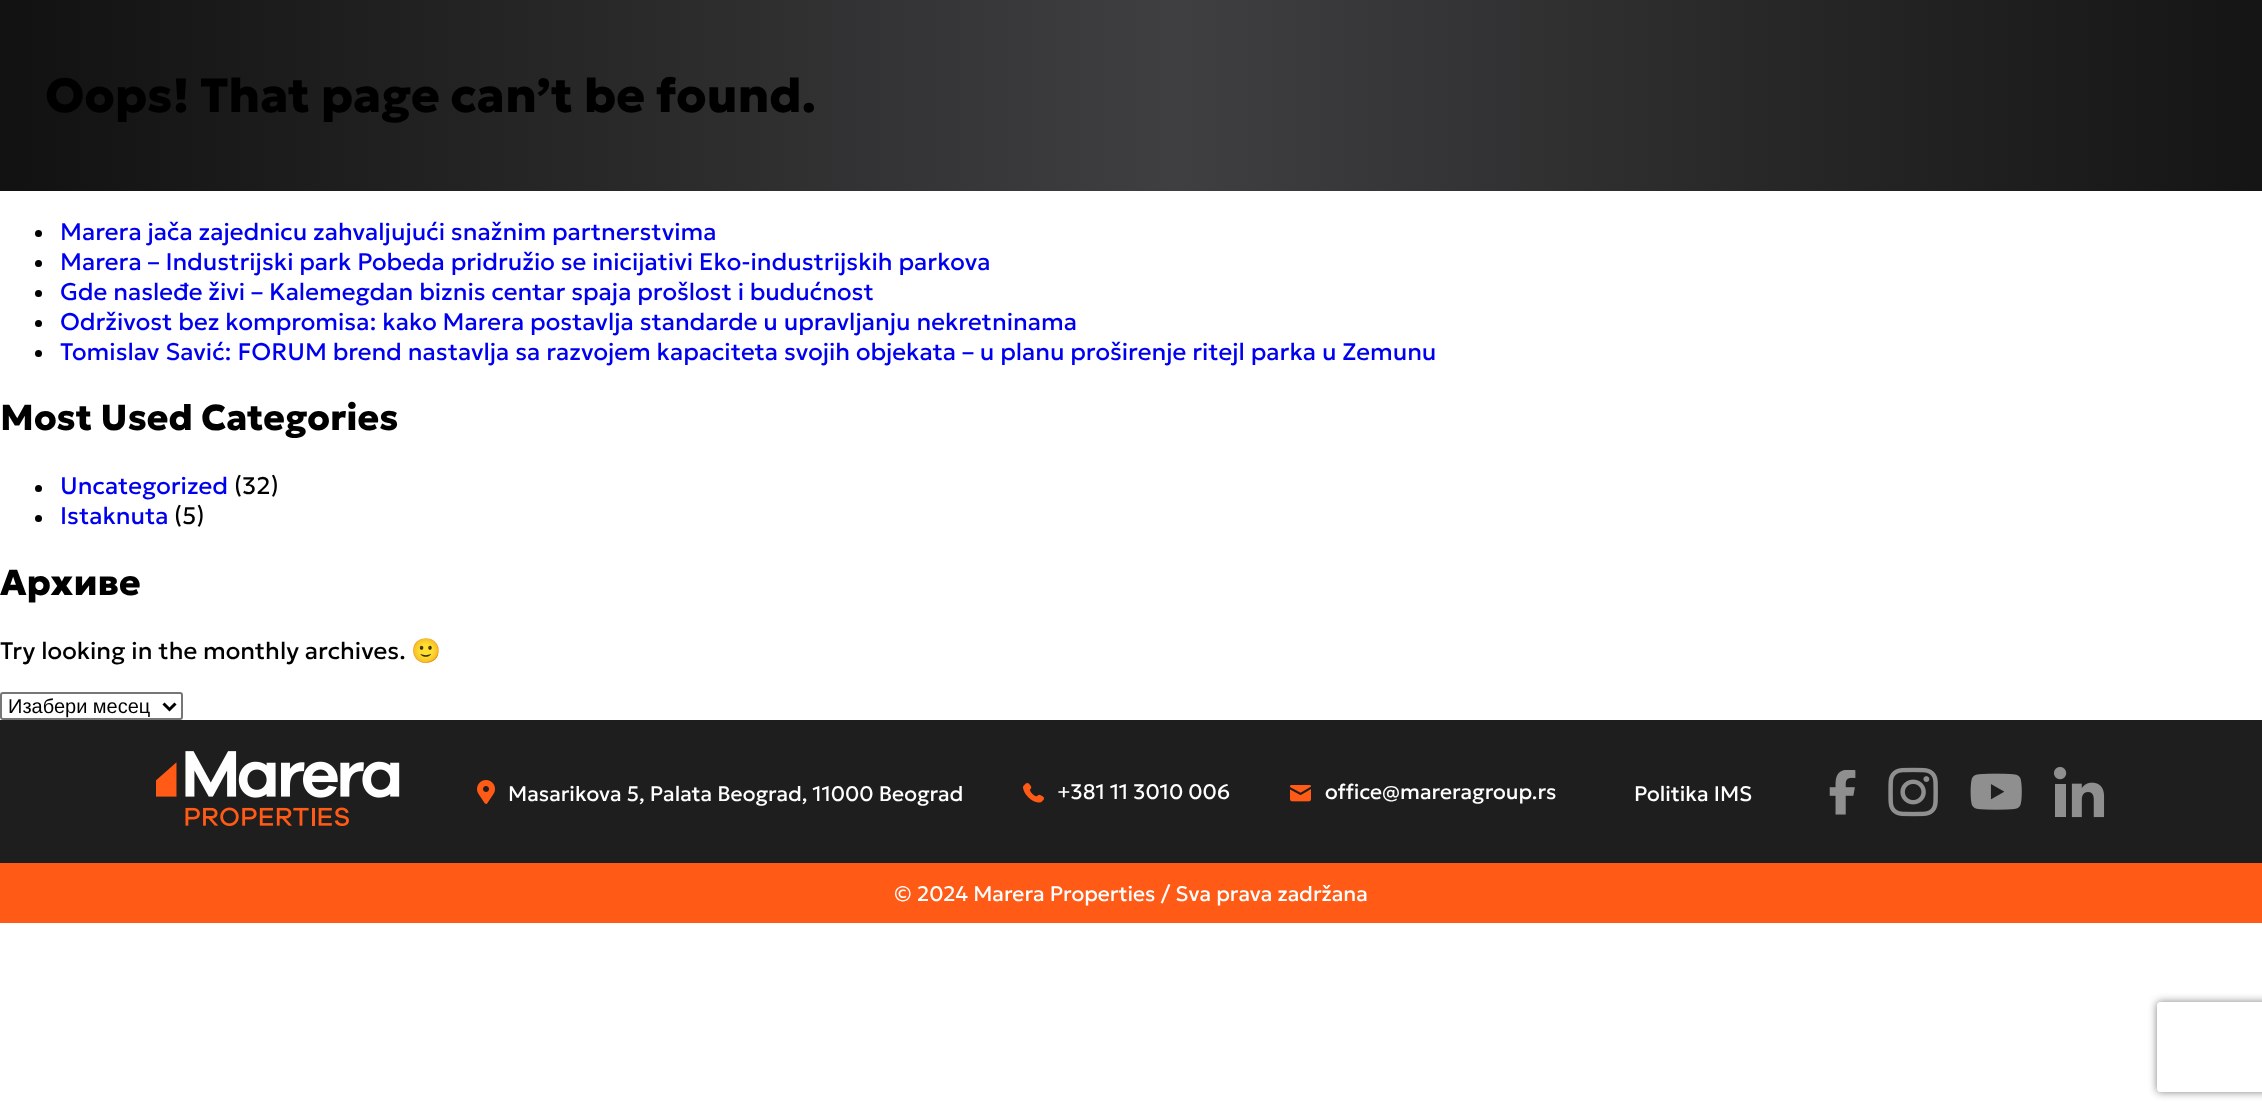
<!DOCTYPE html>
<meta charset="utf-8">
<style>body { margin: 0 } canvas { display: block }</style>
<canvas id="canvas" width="2262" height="1112"></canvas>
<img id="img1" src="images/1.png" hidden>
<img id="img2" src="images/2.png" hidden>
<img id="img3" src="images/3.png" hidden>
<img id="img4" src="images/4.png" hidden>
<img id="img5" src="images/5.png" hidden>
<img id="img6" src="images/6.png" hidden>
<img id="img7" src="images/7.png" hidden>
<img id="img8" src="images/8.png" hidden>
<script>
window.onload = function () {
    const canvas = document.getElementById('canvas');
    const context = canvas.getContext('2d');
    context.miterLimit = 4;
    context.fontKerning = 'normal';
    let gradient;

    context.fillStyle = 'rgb(255, 255, 255)';
    context.fillRect(0, 0, 2262, 1112);
    gradient = context.createLinearGradient(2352, 95, 0, 95);
    gradient.addColorStop(0.01, 'rgb(18, 18, 18)');
    gradient.addColorStop(0.5, 'rgb(63, 62, 64)');
    gradient.addColorStop(0.99, 'rgb(18, 18, 18)');
    context.fillStyle = gradient;
    context.fillRect(0, 0, 2262, 191);
    context.fillStyle = 'rgb(0, 0, 0)';
    context.beginPath();
    context.arc(38.5, 233.5, 3.5, 0, 2 * Math.PI);
    context.fill();
    context.beginPath();
    context.arc(38.5, 263.5, 3.5, 0, 2 * Math.PI);
    context.fill();
    context.beginPath();
    context.arc(38.5, 293.5, 3.5, 0, 2 * Math.PI);
    context.fill();
    context.beginPath();
    context.arc(38.5, 323.5, 3.5, 0, 2 * Math.PI);
    context.fill();
    context.beginPath();
    context.arc(38.5, 353.5, 3.5, 0, 2 * Math.PI);
    context.fill();
    context.beginPath();
    context.arc(38.5, 488.5, 3.5, 0, 2 * Math.PI);
    context.fill();
    context.beginPath();
    context.arc(38.5, 518.5, 3.5, 0, 2 * Math.PI);
    context.fill();
    context.beginPath();
    context.roundRect(1, 693, 181, 26, 2);
    context.strokeStyle = 'rgb(118, 118, 118)';
    context.lineWidth = 2;
    context.stroke();
    context.beginPath();
    context.moveTo(163.5, 703.5);
    context.lineTo(169.5, 709.5);
    context.lineTo(175.5, 703.5);
    context.strokeStyle = 'rgb(0, 0, 0)';
    context.lineWidth = 3;
    context.stroke();
    context.fillStyle = 'rgb(30, 30, 30)';
    context.fillRect(0, 720, 2262, 143);
    context.drawImage(document.getElementById('img1'), 156, 751, 244, 75);
    context.drawImage(document.getElementById('img2'), 477, 780, 18, 24);
    context.drawImage(document.getElementById('img3'), 1023, 783, 21, 20);
    context.drawImage(document.getElementById('img4'), 1290, 785, 21, 17);
    context.drawImage(document.getElementById('img5'), 1829, 770, 27, 45);
    context.drawImage(document.getElementById('img6'), 1888, 767, 50, 50);
    context.drawImage(document.getElementById('img7'), 1970, 773, 52, 37);
    context.drawImage(document.getElementById('img8'), 2054, 767, 51, 51);
    context.fillStyle = 'rgb(255, 90, 22)';
    context.fillRect(0, 863, 2262, 60);
    context.save();
    context.beginPath();
    context.moveTo(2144, 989);
    context.lineTo(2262, 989);
    context.lineTo(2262, 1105);
    context.lineTo(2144, 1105);
    context.closePath();
    context.moveTo(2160, 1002);
    context.lineTo(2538, 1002);
    context.bezierCurveTo(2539.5, 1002, 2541, 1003.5, 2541, 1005);
    context.lineTo(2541, 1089);
    context.bezierCurveTo(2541, 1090.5, 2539.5, 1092, 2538, 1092);
    context.lineTo(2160, 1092);
    context.bezierCurveTo(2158.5, 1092, 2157, 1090.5, 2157, 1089);
    context.lineTo(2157, 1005);
    context.bezierCurveTo(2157, 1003.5, 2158.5, 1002, 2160, 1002);
    context.closePath();
    context.clip('evenodd');
    context.fillStyle = 'rgb(128, 128, 128)';
    context.filter = 'blur(4px)';
    context.beginPath();
    context.roundRect(2157, 1002, 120, 90, 3);
    context.fill();
    context.filter = 'none';
    context.restore();
    context.font = '800 48px Geologica';
    context.fillStyle = 'rgb(0, 0, 0)';
    context.fillText('Oops! That page can’t be found.', 45, 112);
    context.font = '24px Geologica';
    context.fillStyle = 'rgb(0, 0, 238)';
    context.fillText('Marera jača zajednicu zahvaljujući snažnim partnerstvima', 60, 240);
    context.fillText('Marera – Industrijski park Pobeda pridružio se inicijativi Eko-industrijskih parkova', 60, 270);
    context.fillText('Gde nasleđe živi – Kalemegdan biznis centar spaja prošlost i budućnost', 60, 300);
    context.fillText('Održivost bez kompromisa: kako Marera postavlja standarde u upravljanju nekretninama', 60, 330);
    context.fillText('Tomislav Savić: FORUM brend nastavlja sa razvojem kapaciteta svojih objekata – u planu proširenje ritejl parka u Zemunu', 60, 360);
    context.font = '800 36px Geologica';
    context.fillStyle = 'rgb(0, 0, 0)';
    context.fillText('Most Used Categories', 0, 430);
    context.font = '24px Geologica';
    context.fillStyle = 'rgb(0, 0, 238)';
    context.fillText('Uncategorized', 60, 494);
    context.fillStyle = 'rgb(0, 0, 0)';
    context.fillText('(32)', 234, 494);
    context.fillStyle = 'rgb(0, 0, 238)';
    context.fillText('Istaknuta', 60, 524);
    context.fillStyle = 'rgb(0, 0, 0)';
    context.fillText('(5)', 174, 524);
    context.font = '800 36px Geologica';
    context.fillText('Архиве', 0, 595);
    context.font = '24px Geologica';
    context.fillText('Try looking in the monthly archives.', 0, 659);
    context.font = '24px Noto Color Emoji';
    context.fillText('🙂', 411, 659);
    context.font = '20px Liberation Sans';
    context.fillText('Изабери месец', 8, 713);
    context.font = '21px Geologica';
    context.fillStyle = 'rgb(255, 255, 255)';
    context.fillText('Masarikova 5, Palata Beograd, 11000 Beograd', 508, 801);
    context.fillText('+381 11 3010 006', 1057, 799);
    context.fillText('office@mareragroup.rs', 1325, 799);
    context.fillText('Politika IMS', 1634, 801);
    context.fillText('© 2024 Marera Properties / Sva prava zadržana', 894, 901);
};
</script>
